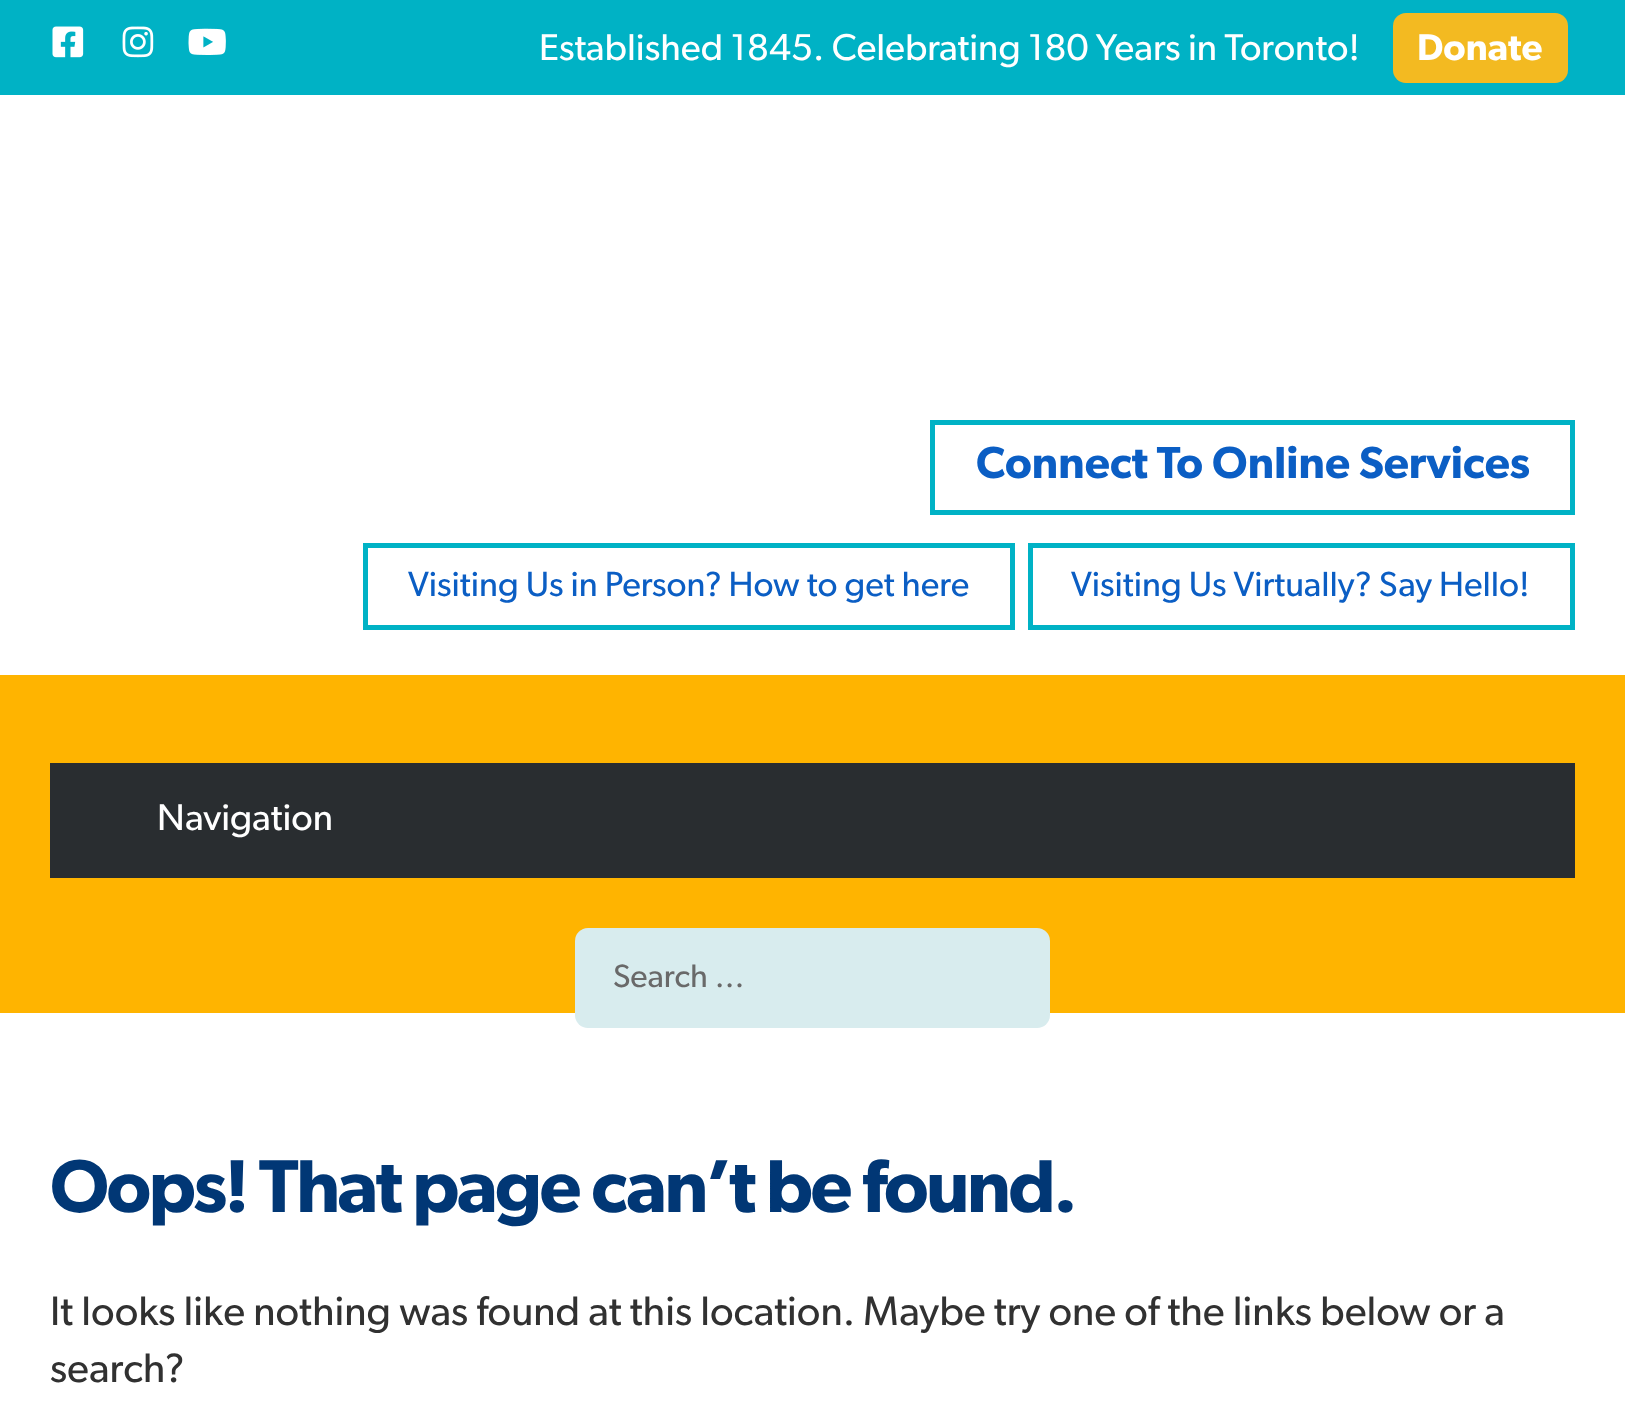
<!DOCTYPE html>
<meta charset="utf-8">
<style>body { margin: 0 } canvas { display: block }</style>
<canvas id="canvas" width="1625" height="1402"></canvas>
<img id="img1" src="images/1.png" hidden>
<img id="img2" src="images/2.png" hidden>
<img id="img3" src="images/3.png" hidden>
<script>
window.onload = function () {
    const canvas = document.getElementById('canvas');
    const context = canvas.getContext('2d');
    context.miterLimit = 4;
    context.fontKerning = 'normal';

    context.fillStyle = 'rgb(255, 255, 255)';
    context.fillRect(0, 0, 1625, 1402);
    context.fillStyle = 'rgb(0, 178, 197)';
    context.fillRect(0, 0, 1625, 95);
    context.drawImage(document.getElementById('img1'), 52, 26, 32, 32);
    context.drawImage(document.getElementById('img2'), 122, 26, 32, 32);
    context.drawImage(document.getElementById('img3'), 188, 28, 38, 27);
    context.fillStyle = 'rgb(243, 186, 33)';
    context.beginPath();
    context.roundRect(1393, 13, 175, 70, 13);
    context.fill();
    context.strokeStyle = 'rgb(0, 178, 197)';
    context.lineWidth = 5;
    context.strokeRect(932.5, 422.5, 640, 90);
    context.strokeRect(365.5, 545.5, 647, 82);
    context.strokeRect(1030.5, 545.5, 542, 82);
    context.fillStyle = 'rgb(255, 180, 0)';
    context.fillRect(0, 675, 1625, 338);
    context.fillStyle = 'rgb(41, 45, 48)';
    context.fillRect(50, 763, 1525, 115);
    context.fillStyle = 'rgb(216, 236, 238)';
    context.beginPath();
    context.roundRect(575, 928, 475, 100, 13);
    context.fill();
    context.font = '37.5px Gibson';
    context.fillStyle = 'rgb(255, 255, 255)';
    context.fillText('Established 1845. Celebrating 180 Years in Toronto!', 539, 60);
    context.font = '600 37.5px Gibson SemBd';
    context.fillText('Donate', 1417, 60);
    context.font = '600 45px Gibson SemBd';
    context.fillStyle = 'rgb(11, 94, 196)';
    context.fillText('Connect To Online Services', 976, 478);
    context.font = '35px Gibson';
    context.fillText('Visiting Us in Person? How to get here', 408, 596);
    context.fillText('Visiting Us Virtually? Say Hello!', 1071, 596);
    context.font = '37.5px Gibson';
    context.fillStyle = 'rgb(255, 255, 255)';
    context.fillText('Navigation', 157, 830);
    context.font = '32.5px Gibson';
    context.fillStyle = 'rgb(105, 105, 105)';
    context.fillText('Search …', 613, 987);
    context.letterSpacing = '-2.5px';
    context.font = '600 75px Gibson SemBd';
    context.fillStyle = 'rgb(1, 55, 117)';
    context.fillText('Oops! That page can’t be found.', 50, 1212);
    context.letterSpacing = '0px';
    context.font = '41.25px Gibson';
    context.fillStyle = 'rgb(49, 49, 49)';
    context.fillText('It looks like nothing was found at this location. Maybe try one of the links below or a', 50, 1325);
    context.fillText('search?', 50, 1382);
};
</script>
